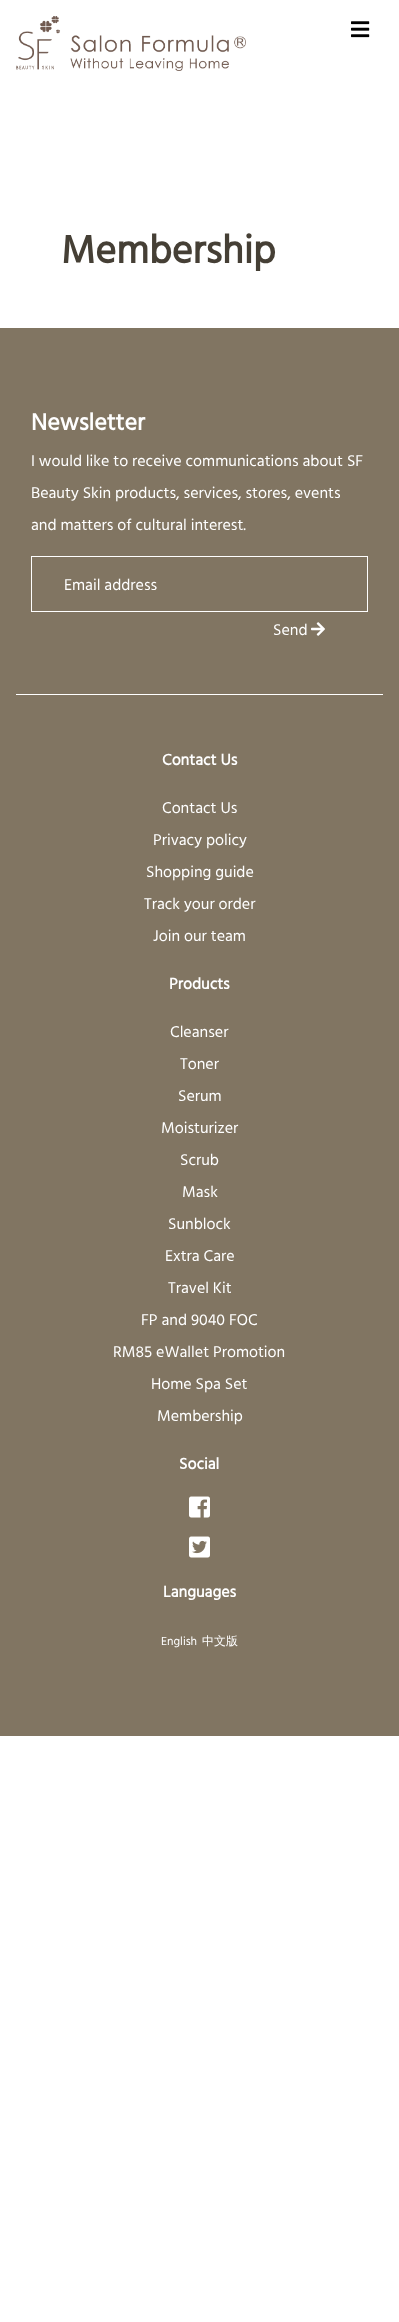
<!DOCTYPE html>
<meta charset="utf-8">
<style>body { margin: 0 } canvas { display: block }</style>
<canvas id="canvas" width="399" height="2322"></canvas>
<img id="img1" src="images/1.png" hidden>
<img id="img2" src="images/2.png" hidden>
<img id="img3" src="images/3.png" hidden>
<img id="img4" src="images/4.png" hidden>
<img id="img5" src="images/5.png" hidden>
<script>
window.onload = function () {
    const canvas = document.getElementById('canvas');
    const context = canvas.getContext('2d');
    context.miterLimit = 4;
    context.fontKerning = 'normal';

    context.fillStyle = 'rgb(255, 255, 255)';
    context.fillRect(0, 0, 399, 2322);
    context.drawImage(document.getElementById('img1'), 16, 16, 230, 55);
    context.drawImage(document.getElementById('img2'), 351, 21, 19, 17);
    context.fillStyle = 'rgb(129, 117, 98)';
    context.fillRect(0, 328, 399, 1408);
    context.fillStyle = 'rgb(255, 255, 255)';
    context.fillRect(16, 694, 367, 1);
    context.strokeStyle = 'rgb(255, 255, 255)';
    context.strokeRect(31.5, 556.5, 336, 55);
    context.drawImage(document.getElementById('img3'), 311, 622, 14, 14);
    context.drawImage(document.getElementById('img4'), 189, 1496, 21, 22);
    context.drawImage(document.getElementById('img5'), 189, 1536, 21, 22);
    context.font = 'bold 40px Hind Vadodara';
    context.fillStyle = 'rgb(69, 63, 53)';
    context.fillText('Membership', 61, 263);
    context.font = 'bold 24px Hind Vadodara';
    context.fillStyle = 'rgb(255, 255, 255)';
    context.fillText('Newsletter', 31, 430);
    context.font = '16px Hind Vadodara';
    context.fillText('I would like to receive communications about SF', 31, 466);
    context.fillText('Beauty Skin products, services, stores, events', 31, 498);
    context.fillText('and matters of cultural interest.', 31, 530);
    context.fillText('Email address', 64, 590);
    context.fillText('Send', 273, 635);
    context.font = 'bold 16px Hind Vadodara';
    context.fillText('Contact Us', 162, 765);
    context.font = '16px Hind Vadodara';
    context.fillText('Contact Us', 162, 813);
    context.fillText('Privacy policy', 153, 845);
    context.fillText('Shopping guide', 146, 877);
    context.fillText('Track your order', 144, 909);
    context.fillText('Join our team', 153, 941);
    context.font = 'bold 16px Hind Vadodara';
    context.fillText('Products', 169, 989);
    context.font = '16px Hind Vadodara';
    context.fillText('Cleanser', 170, 1037);
    context.fillText('Toner', 180, 1069);
    context.fillText('Serum', 178, 1101);
    context.fillText('Moisturizer', 161, 1133);
    context.fillText('Scrub', 180, 1165);
    context.fillText('Mask', 182, 1197);
    context.fillText('Sunblock', 168, 1229);
    context.fillText('Extra Care', 165, 1261);
    context.fillText('Travel Kit', 168, 1293);
    context.fillText('FP and 9040 FOC', 141, 1325);
    context.fillText('RM85 eWallet Promotion', 113, 1357);
    context.fillText('Home Spa Set', 151, 1389);
    context.fillText('Membership', 157, 1421);
    context.font = 'bold 16px Hind Vadodara';
    context.fillText('Social', 179, 1469);
    context.fillText('Languages', 163, 1597);
    context.font = '12px Hind Vadodara';
    context.fillText('English', 161, 1645);
    context.font = '500 12px WenQuanYi Zen Hei';
    context.fillText('中文版', 202, 1645);
};
</script>
